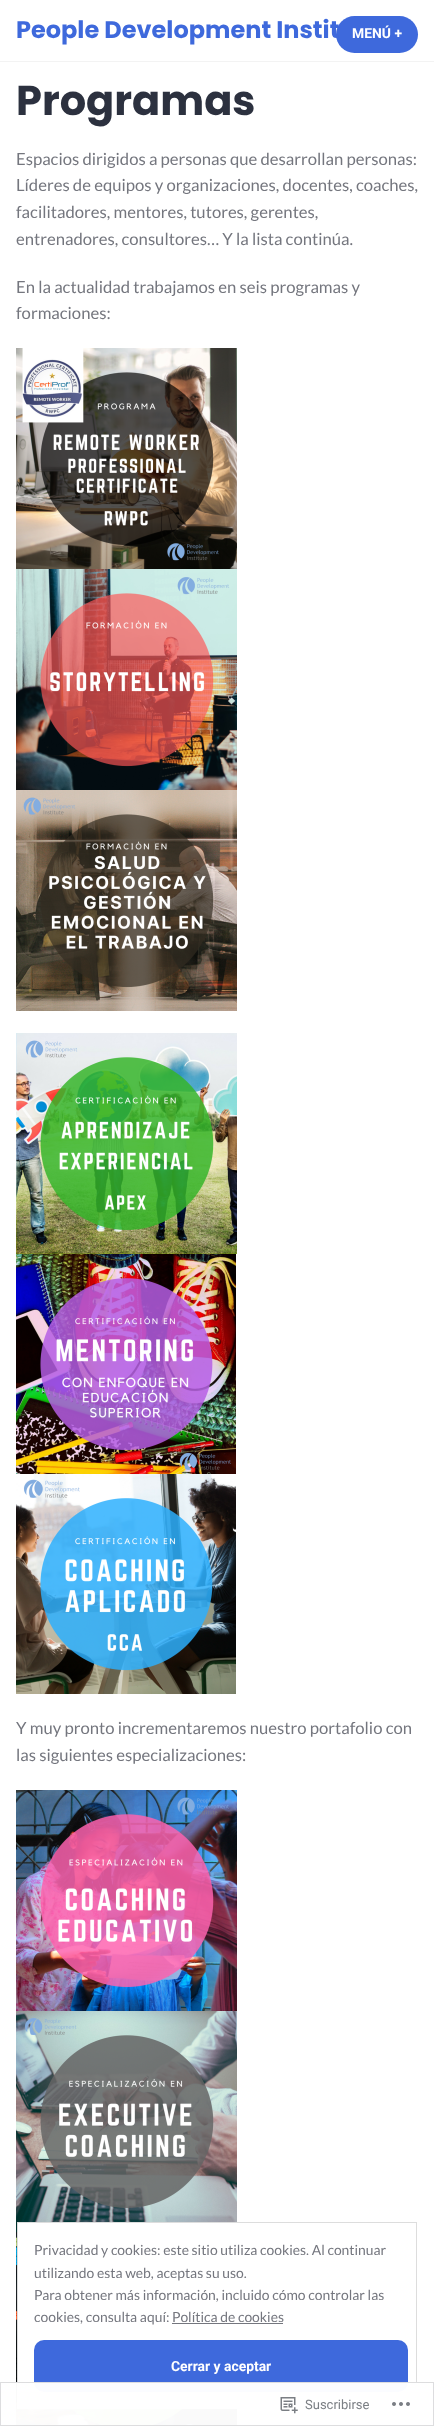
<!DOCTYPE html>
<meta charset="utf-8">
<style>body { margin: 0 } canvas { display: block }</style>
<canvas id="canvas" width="434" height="2426"></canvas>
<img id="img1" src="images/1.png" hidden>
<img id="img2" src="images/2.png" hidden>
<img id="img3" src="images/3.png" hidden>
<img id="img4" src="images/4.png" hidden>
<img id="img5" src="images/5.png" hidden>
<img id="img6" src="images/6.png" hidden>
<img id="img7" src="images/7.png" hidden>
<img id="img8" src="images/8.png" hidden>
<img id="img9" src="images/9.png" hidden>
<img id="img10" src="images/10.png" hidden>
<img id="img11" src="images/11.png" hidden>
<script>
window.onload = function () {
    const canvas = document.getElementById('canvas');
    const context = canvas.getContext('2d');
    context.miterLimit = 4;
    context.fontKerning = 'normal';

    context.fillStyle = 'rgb(255, 255, 255)';
    context.fillRect(0, 0, 434, 2426);
    context.fillStyle = 'rgb(243, 243, 243)';
    context.fillRect(0, 61, 434, 1);
    context.fillStyle = 'rgb(62, 105, 220)';
    context.beginPath();
    context.roundRect(336, 16, 82, 37, 18.5);
    context.fill();
    context.drawImage(document.getElementById('img1'), 16, 348, 221, 221);
    context.drawImage(document.getElementById('img2'), 16, 569, 221, 221);
    context.drawImage(document.getElementById('img3'), 16, 790, 221, 221);
    context.drawImage(document.getElementById('img4'), 16, 1033, 221, 221);
    context.drawImage(document.getElementById('img5'), 16, 1254, 220, 220);
    context.drawImage(document.getElementById('img6'), 16, 1474, 220, 220);
    context.drawImage(document.getElementById('img7'), 16, 1790, 221, 221);
    context.drawImage(document.getElementById('img8'), 16, 2011, 221, 221);
    context.drawImage(document.getElementById('img9'), 16, 2232, 221, 194);
    context.fillStyle = 'rgb(255, 255, 255)';
    context.fillRect(18, 2223, 219, 185);
    context.strokeStyle = 'rgb(221, 221, 221)';
    context.strokeRect(17.5, 2222.5, 399, 186);
    context.fillStyle = 'rgb(116, 118, 126)';
    context.fillRect(172, 2323, 111, 1);
    context.fillStyle = 'rgb(62, 105, 220)';
    context.beginPath();
    context.roundRect(34, 2340, 374, 52, 10);
    context.fill();
    context.fillStyle = 'rgba(255, 255, 255, 0.98)';
    context.fillRect(16, 2382, 401, 44);
    context.strokeStyle = 'rgba(220, 220, 222, 0.98)';
    context.strokeRect(0.5, 2382.5, 433, 43);
    context.drawImage(document.getElementById('img10'), 280, 2397, 18, 17);
    context.drawImage(document.getElementById('img11'), 392, 2402, 18, 4);
    context.font = 'bold 24px Poppins';
    context.fillStyle = 'rgb(62, 105, 220)';
    context.fillText('People Development Instit', 16, 38);
    context.font = 'bold 13.9px Roboto';
    context.fillStyle = 'rgb(255, 255, 255)';
    context.fillText('MENÚ +', 352, 38);
    context.font = 'bold 41.5px Poppins';
    context.fillStyle = 'rgb(44, 49, 63)';
    context.fillText('Programas', 16, 115);
    context.font = '16.7px Lato';
    context.fillStyle = 'rgb(116, 118, 126)';
    context.fillText('Espacios dirigidos a personas que desarrollan personas:', 16, 165);
    context.fillText('Líderes de equipos y organizaciones, docentes, coaches,', 16, 191);
    context.fillText('facilitadores, mentores, tutores, gerentes,', 16, 218);
    context.fillText('entrenadores, consultores… Y la lista continúa.', 16, 245);
    context.fillText('En la actualidad trabajamos en seis programas y', 16, 293);
    context.fillText('formaciones:', 16, 319);
    context.fillText('Y muy pronto incrementaremos nuestro portafolio con', 16, 1734);
    context.fillText('las siguientes especializaciones:', 16, 1761);
    context.font = '13.9px Lato';
    context.fillText('Privacidad y cookies: este sitio utiliza cookies. Al continuar', 34, 2255);
    context.fillText('utilizando esta web, aceptas su uso.', 34, 2278);
    context.fillText('Para obtener más información, incluido cómo controlar las', 34, 2300);
    context.fillText('cookies, consulta aquí: Política de cookies', 34, 2322);
    context.font = 'bold 13.9px Roboto';
    context.fillStyle = 'rgb(255, 255, 255)';
    context.fillText('Cerrar y aceptar', 171, 2371);
    context.font = '13px Roboto';
    context.fillStyle = 'rgb(123, 127, 132)';
    context.fillText('Suscribirse', 305, 2409);
};
</script>
